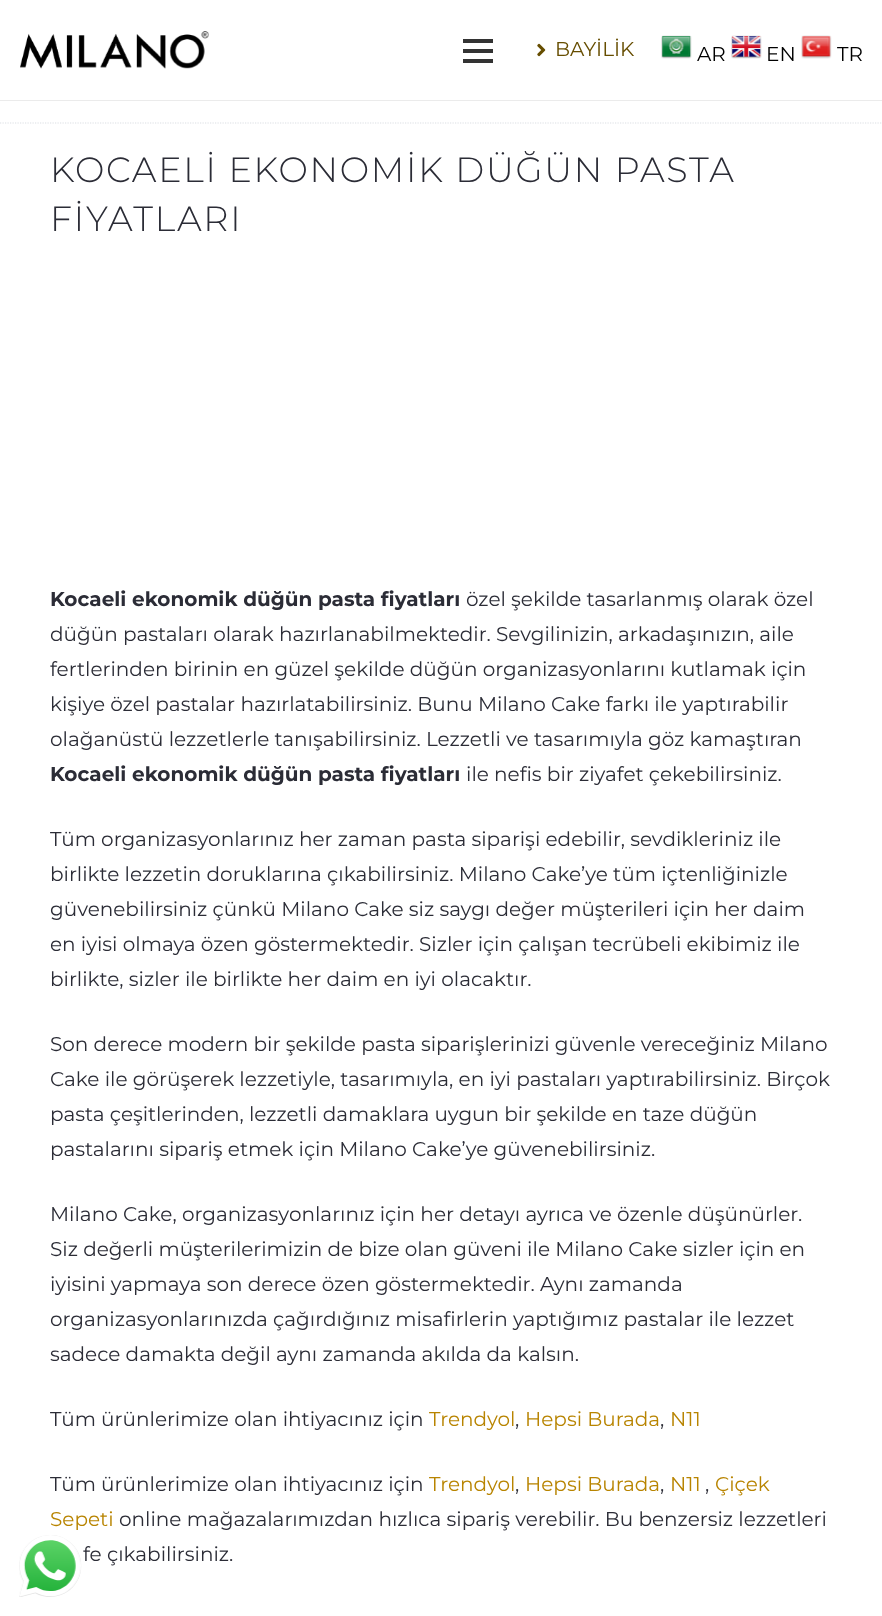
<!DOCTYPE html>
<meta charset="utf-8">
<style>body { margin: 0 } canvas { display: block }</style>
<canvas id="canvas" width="882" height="1616"></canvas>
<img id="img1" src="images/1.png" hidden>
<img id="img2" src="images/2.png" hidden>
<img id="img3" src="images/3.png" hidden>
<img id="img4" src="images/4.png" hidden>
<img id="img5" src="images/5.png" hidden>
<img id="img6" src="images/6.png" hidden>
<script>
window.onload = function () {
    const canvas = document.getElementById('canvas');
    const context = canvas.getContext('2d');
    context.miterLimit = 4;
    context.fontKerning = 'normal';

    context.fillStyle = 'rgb(255, 255, 255)';
    context.fillRect(0, 0, 882, 1616);
    context.fillStyle = 'rgb(235, 235, 235)';
    context.beginPath();
    context.moveTo(0, 100);
    context.lineTo(0, 101);
    context.lineTo(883, 101);
    context.lineTo(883, 1);
    context.lineTo(882, 1);
    context.lineTo(882, 100);
    context.closePath();
    context.fill();
    context.drawImage(document.getElementById('img1'), 20, 31, 189, 38);
    context.fillStyle = 'rgb(51, 51, 51)';
    context.fillRect(463, 49, 30, 4);
    context.fillRect(463, 39, 30, 4);
    context.fillRect(463, 59, 30, 4);
    context.drawImage(document.getElementById('img2'), 537, 43, 9, 14);
    context.drawImage(document.getElementById('img3'), 661, 35, 31, 24);
    context.drawImage(document.getElementById('img4'), 731, 35, 31, 24);
    context.drawImage(document.getElementById('img5'), 801, 35, 31, 24);
    context.beginPath();
    context.moveTo(0, 123);
    context.lineTo(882.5, 123);
    context.strokeStyle = 'rgb(220, 224, 227)';
    context.lineWidth = 1.2;
    context.setLineDash([1.25, 1.25]);
    context.stroke();
    context.drawImage(document.getElementById('img6'), 19, 1535, 63, 62);
    context.font = '20px Montserrat';
    context.fillStyle = 'rgb(102, 77, 0)';
    context.fillText('BAYİLİK', 555, 56);
    context.fillStyle = 'rgb(0, 0, 0)';
    context.fillText('AR', 697, 61);
    context.fillText('EN', 766, 61);
    context.fillText('TR', 837, 61);
    context.letterSpacing = '1.75px';
    context.font = '300 35px Montserrat';
    context.fillStyle = 'rgb(43, 44, 54)';
    context.fillText('KOCAELİ EKONOMİK DÜĞÜN PASTA', 50, 182);
    context.fillText('FİYATLARI', 50, 231);
    context.letterSpacing = '0px';
    context.font = 'bold 20px Montserrat';
    context.fillText('Kocaeli ekonomik düğün pasta fiyatları', 50, 606);
    context.font = '20px Montserrat';
    context.fillText('özel şekilde tasarlanmış olarak özel', 466, 606);
    context.fillText('düğün pastaları olarak hazırlanabilmektedir. Sevgilinizin, arkadaşınızın, aile', 50, 641);
    context.fillText('fertlerinden birinin en güzel şekilde düğün organizasyonlarını kutlamak için', 50, 676);
    context.fillText('kişiye özel pastalar hazırlatabilirsiniz. Bunu Milano Cake farkı ile yaptırabilir', 50, 711);
    context.fillText('olağanüstü lezzetlerle tanışabilirsiniz. Lezzetli ve tasarımıyla göz kamaştıran', 50, 746);
    context.font = 'bold 20px Montserrat';
    context.fillText('Kocaeli ekonomik düğün pasta fiyatları', 50, 781);
    context.font = '20px Montserrat';
    context.fillText('ile nefis bir ziyafet çekebilirsiniz.', 466, 781);
    context.fillText('Tüm organizasyonlarınız her zaman pasta siparişi edebilir, sevdikleriniz ile', 50, 846);
    context.fillText('birlikte lezzetin doruklarına çıkabilirsiniz. Milano Cake’ye tüm içtenliğinizle', 50, 881);
    context.fillText('güvenebilirsiniz çünkü Milano Cake siz saygı değer müşterileri için her daim', 50, 916);
    context.fillText('en iyisi olmaya özen göstermektedir. Sizler için çalışan tecrübeli ekibimiz ile', 50, 951);
    context.fillText('birlikte, sizler ile birlikte her daim en iyi olacaktır.', 50, 986);
    context.fillText('Son derece modern bir şekilde pasta siparişlerinizi güvenle vereceğiniz Milano', 50, 1051);
    context.fillText('Cake ile görüşerek lezzetiyle, tasarımıyla, en iyi pastaları yaptırabilirsiniz. Birçok', 50, 1086);
    context.fillText('pasta çeşitlerinden, lezzetli damaklara uygun bir şekilde en taze düğün', 50, 1121);
    context.fillText('pastalarını sipariş etmek için Milano Cake’ye güvenebilirsiniz.', 50, 1156);
    context.fillText('Milano Cake, organizasyonlarınız için her detayı ayrıca ve özenle düşünürler.', 50, 1221);
    context.fillText('Siz değerli müşterilerimizin de bize olan güveni ile Milano Cake sizler için en', 50, 1256);
    context.fillText('iyisini yapmaya son derece özen göstermektedir. Aynı zamanda', 50, 1291);
    context.fillText('organizasyonlarınızda çağırdığınız misafirlerin yaptığımız pastalar ile lezzet', 50, 1326);
    context.fillText('sadece damakta değil aynı zamanda akılda da kalsın.', 50, 1361);
    context.fillText('Tüm ürünlerimize olan ihtiyacınız için', 50, 1426);
    context.fillStyle = 'rgb(184, 132, 0)';
    context.fillText('Trendyol', 429, 1426);
    context.fillStyle = 'rgb(43, 44, 54)';
    context.fillText(',', 515, 1426);
    context.fillStyle = 'rgb(184, 132, 0)';
    context.fillText('Hepsi Burada', 525, 1426);
    context.fillStyle = 'rgb(43, 44, 54)';
    context.fillText(',', 660, 1426);
    context.fillStyle = 'rgb(184, 132, 0)';
    context.fillText('N11', 670, 1426);
    context.fillStyle = 'rgb(43, 44, 54)';
    context.fillText('Tüm ürünlerimize olan ihtiyacınız için', 50, 1491);
    context.fillStyle = 'rgb(184, 132, 0)';
    context.fillText('Trendyol', 429, 1491);
    context.fillStyle = 'rgb(43, 44, 54)';
    context.fillText(',', 515, 1491);
    context.fillStyle = 'rgb(184, 132, 0)';
    context.fillText('Hepsi Burada', 525, 1491);
    context.fillStyle = 'rgb(43, 44, 54)';
    context.fillText(',', 660, 1491);
    context.fillStyle = 'rgb(184, 132, 0)';
    context.fillText('N11', 670, 1491);
    context.fillStyle = 'rgb(43, 44, 54)';
    context.fillText(',', 705, 1491);
    context.fillStyle = 'rgb(184, 132, 0)';
    context.fillText('Çiçek', 715, 1491);
    context.fillText('Sepeti', 50, 1526);
    context.fillStyle = 'rgb(43, 44, 54)';
    context.fillText('online mağazalarımızdan hızlıca sipariş verebilir. Bu benzersiz lezzetleri', 119, 1526);
    context.fillText('fe çıkabilirsiniz.', 83, 1561);
};
</script>
